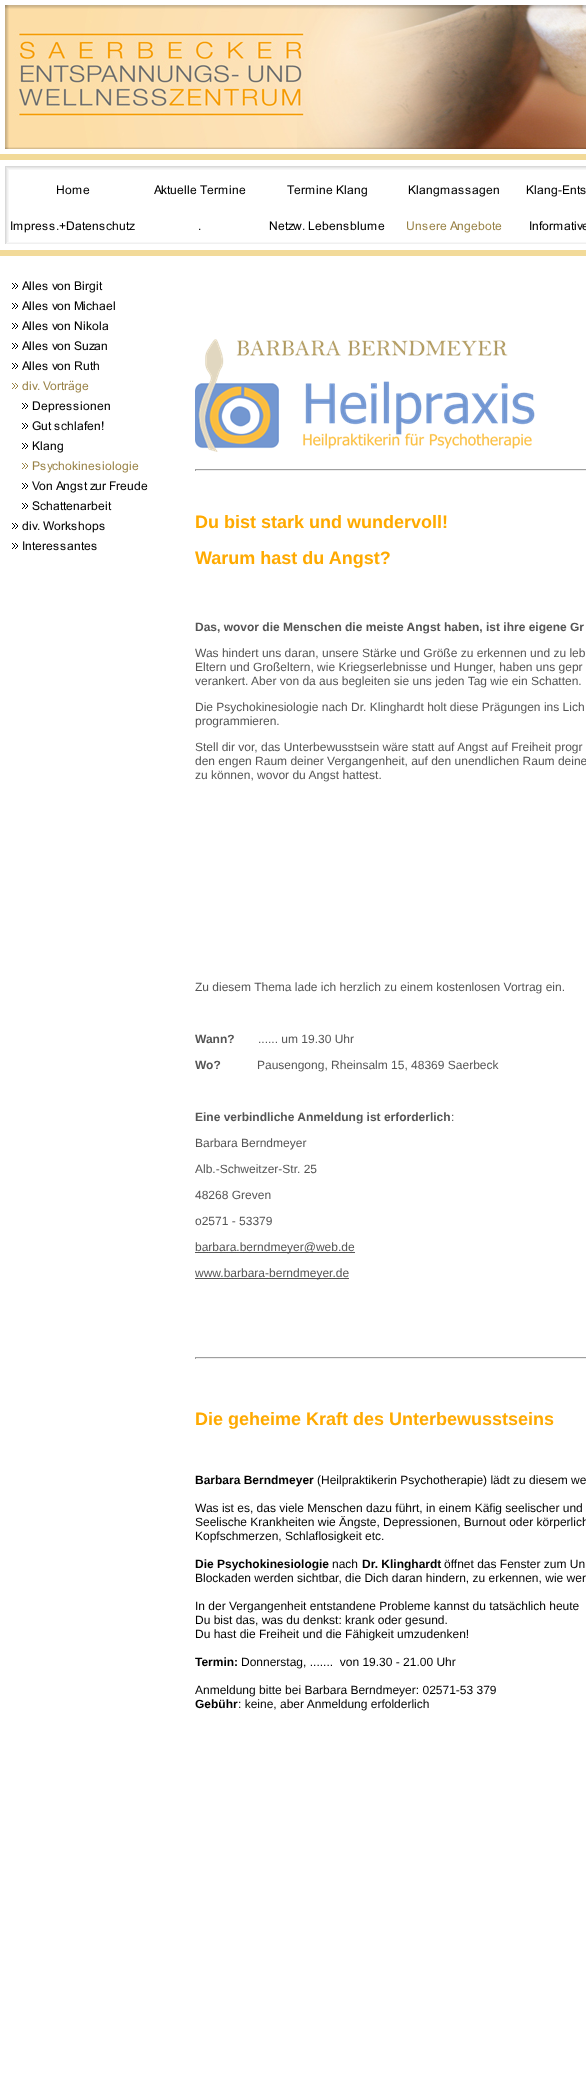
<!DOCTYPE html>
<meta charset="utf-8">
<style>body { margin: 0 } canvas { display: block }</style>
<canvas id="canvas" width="586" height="2081"></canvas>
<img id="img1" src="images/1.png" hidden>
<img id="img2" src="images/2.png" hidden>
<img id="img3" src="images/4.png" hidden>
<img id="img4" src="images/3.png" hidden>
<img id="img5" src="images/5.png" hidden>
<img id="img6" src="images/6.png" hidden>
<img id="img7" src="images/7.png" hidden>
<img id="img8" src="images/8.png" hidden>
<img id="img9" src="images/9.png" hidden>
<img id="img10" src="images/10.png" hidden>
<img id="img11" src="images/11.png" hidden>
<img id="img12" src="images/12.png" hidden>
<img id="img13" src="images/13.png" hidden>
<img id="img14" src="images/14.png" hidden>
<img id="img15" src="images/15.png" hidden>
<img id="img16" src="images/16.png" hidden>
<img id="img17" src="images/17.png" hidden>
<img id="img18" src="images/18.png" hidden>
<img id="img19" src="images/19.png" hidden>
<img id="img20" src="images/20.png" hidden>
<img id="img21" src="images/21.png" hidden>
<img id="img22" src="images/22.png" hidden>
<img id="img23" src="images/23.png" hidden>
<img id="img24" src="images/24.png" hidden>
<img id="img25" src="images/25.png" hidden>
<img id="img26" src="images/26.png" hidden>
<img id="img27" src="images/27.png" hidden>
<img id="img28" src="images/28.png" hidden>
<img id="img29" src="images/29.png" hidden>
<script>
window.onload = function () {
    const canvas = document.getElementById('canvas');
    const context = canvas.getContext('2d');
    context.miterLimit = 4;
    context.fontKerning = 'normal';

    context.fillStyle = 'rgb(242, 218, 153)';
    context.fillRect(0, 0, 586, 2081);
    context.fillStyle = 'rgb(255, 255, 255)';
    context.fillRect(0, 0, 586, 154);
    context.drawImage(document.getElementById('img1'), 5, 5, 581, 144);
    context.drawImage(document.getElementById('img2'), 5, 5, 581, 4);
    context.drawImage(document.getElementById('img3'), 5, 147, 581, 2);
    context.drawImage(document.getElementById('img4'), 5, 5, 4, 144);
    context.fillRect(0, 160, 586, 90);
    context.fillStyle = 'rgb(217, 217, 217)';
    context.fillRect(5, 166, 581, 1);
    context.fillStyle = 'rgb(240, 240, 240)';
    context.fillRect(5, 243, 581, 1);
    context.fillStyle = 'rgb(217, 217, 217)';
    context.fillRect(5, 166, 1, 78);
    context.fillStyle = 'rgb(229, 229, 229)';
    context.fillRect(6, 167, 580, 1);
    context.fillStyle = 'rgb(247, 247, 247)';
    context.fillRect(6, 242, 580, 1);
    context.fillStyle = 'rgb(229, 229, 229)';
    context.fillRect(6, 167, 1, 76);
    context.fillStyle = 'rgb(240, 240, 240)';
    context.fillRect(7, 168, 579, 1);
    context.fillRect(7, 168, 1, 74);
    context.fillStyle = 'rgb(247, 247, 247)';
    context.fillRect(8, 169, 578, 1);
    context.fillRect(8, 169, 1, 73);
    context.drawImage(document.getElementById('img5'), 57, 185, 33, 10);
    context.drawImage(document.getElementById('img6'), 154, 185, 92, 10);
    context.drawImage(document.getElementById('img7'), 287, 185, 80, 12);
    context.drawImage(document.getElementById('img8'), 408, 185, 91, 12);
    context.drawImage(document.getElementById('img9'), 526, 185, 60, 12);
    context.drawImage(document.getElementById('img10'), 11, 221, 124, 12);
    context.drawImage(document.getElementById('img11'), 199, 228, 2, 2);
    context.drawImage(document.getElementById('img12'), 269, 221, 116, 10);
    context.drawImage(document.getElementById('img13'), 407, 221, 95, 12);
    context.drawImage(document.getElementById('img14'), 530, 221, 56, 10);
    context.fillStyle = 'rgb(255, 255, 255)';
    context.fillRect(0, 256, 586, 1825);
    context.drawImage(document.getElementById('img15'), 12, 281, 91, 12);
    context.drawImage(document.getElementById('img16'), 12, 301, 103, 10);
    context.drawImage(document.getElementById('img17'), 12, 321, 97, 10);
    context.drawImage(document.getElementById('img18'), 12, 341, 95, 10);
    context.drawImage(document.getElementById('img19'), 12, 361, 87, 10);
    context.drawImage(document.getElementById('img20'), 12, 380, 77, 13);
    context.drawImage(document.getElementById('img21'), 22, 401, 88, 12);
    context.drawImage(document.getElementById('img22'), 22, 421, 82, 10);
    context.drawImage(document.getElementById('img23'), 22, 441, 41, 12);
    context.drawImage(document.getElementById('img24'), 22, 461, 117, 12);
    context.drawImage(document.getElementById('img25'), 22, 481, 126, 12);
    context.drawImage(document.getElementById('img26'), 22, 501, 90, 10);
    context.drawImage(document.getElementById('img27'), 12, 521, 93, 12);
    context.drawImage(document.getElementById('img28'), 12, 541, 85, 10);
    context.drawImage(document.getElementById('img29'), 195, 339, 340, 113);
    context.fillStyle = 'rgb(159, 159, 159)';
    context.fillRect(195, 469, 391, 1);
    context.fillStyle = 'rgb(238, 238, 238)';
    context.fillRect(195, 470, 391, 1);
    context.fillStyle = 'rgb(159, 159, 159)';
    context.fillRect(195, 469, 1, 2);
    context.fillStyle = 'rgb(85, 85, 85)';
    context.fillRect(195, 1252, 160, 1);
    context.fillRect(195, 1278, 154, 1);
    context.fillStyle = 'rgb(159, 159, 159)';
    context.fillRect(195, 1357, 391, 1);
    context.fillStyle = 'rgb(238, 238, 238)';
    context.fillRect(195, 1358, 391, 1);
    context.fillStyle = 'rgb(159, 159, 159)';
    context.fillRect(195, 1357, 1, 2);
    context.font = 'bold 18px Liberation Sans';
    context.fillStyle = 'rgb(255, 170, 0)';
    context.fillText('Du bist stark und wundervoll!', 195, 528);
    context.fillText('Warum hast du Angst?', 195, 564);
    context.font = 'bold 12px Liberation Sans';
    context.fillStyle = 'rgb(85, 85, 85)';
    context.fillText('Das, wovor die Menschen die meiste Angst haben, ist ihre eigene Gr', 195, 631);
    context.font = '12px Liberation Sans';
    context.fillText('Was hindert uns daran, unsere Stärke und Größe zu erkennen und zu leb', 195, 657);
    context.fillText('Eltern und Großeltern, wie Kriegserlebnisse und Hunger, haben uns gepr', 195, 671);
    context.fillText('verankert. Aber von da aus begleiten sie uns jeden Tag wie ein Schatten.', 195, 685);
    context.fillText('Die Psychokinesiologie nach Dr. Klinghardt holt diese Prägungen ins Lich', 195, 711);
    context.fillText('programmieren.', 195, 725);
    context.fillText('Stell dir vor, das Unterbewusstsein wäre statt auf Angst auf Freiheit progr', 195, 751);
    context.fillText('den engen Raum deiner Vergangenheit, auf den unendlichen Raum deine', 195, 765);
    context.fillText('zu können, wovor du Angst hattest.', 195, 779);
    context.fillText('Zu diesem Thema lade ich herzlich zu einem kostenlosen Vortrag ein.', 195, 991);
    context.font = 'bold 12px Liberation Sans';
    context.fillText('Wann?', 195, 1043);
    context.font = '12px Liberation Sans';
    context.fillText('...... um 19.30 Uhr', 258, 1043);
    context.font = 'bold 12px Liberation Sans';
    context.fillText('Wo?', 195, 1069);
    context.font = '12px Liberation Sans';
    context.fillText('Pausengong, Rheinsalm 15, 48369 Saerbeck', 257, 1069);
    context.font = 'bold 12px Liberation Sans';
    context.fillText('Eine verbindliche Anmeldung ist erforderlich', 195, 1121);
    context.font = '12px Liberation Sans';
    context.fillText(':', 451, 1121);
    context.fillText('Barbara Berndmeyer', 195, 1147);
    context.fillText('Alb.-Schweitzer-Str. 25', 195, 1173);
    context.fillText('48268 Greven', 195, 1199);
    context.fillText('o2571 - 53379', 195, 1225);
    context.fillText('barbara.berndmeyer@web.de', 195, 1251);
    context.fillText('www.barbara-berndmeyer.de', 195, 1277);
    context.font = 'bold 18px Liberation Sans';
    context.fillStyle = 'rgb(255, 170, 0)';
    context.fillText('Die geheime Kraft des Unterbewusstseins', 195, 1425);
    context.font = 'bold 12px Liberation Sans';
    context.fillStyle = 'rgb(0, 0, 0)';
    context.fillText('Barbara Berndmeyer', 195, 1484);
    context.font = '12px Liberation Sans';
    context.fillText('(Heilpraktikerin Psychotherapie) lädt zu diesem we', 317, 1484);
    context.fillText('Was ist es, das viele Menschen dazu führt, in einem Käfig seelischer und', 195, 1512);
    context.fillText('Seelische Krankheiten wie Ängste, Depressionen, Burnout oder körperlich', 195, 1526);
    context.fillText('Kopfschmerzen, Schlaflosigkeit etc.', 195, 1540);
    context.font = 'bold 12px Liberation Sans';
    context.fillText('Die Psychokinesiologie', 195, 1568);
    context.font = '12px Liberation Sans';
    context.fillText('nach', 332, 1568);
    context.font = 'bold 12px Liberation Sans';
    context.fillText('Dr. Klinghardt', 362, 1568);
    context.font = '12px Liberation Sans';
    context.fillText('öffnet das Fenster zum Un', 444, 1568);
    context.fillText('Blockaden werden sichtbar, die Dich daran hindern, zu erkennen, wie wer', 195, 1582);
    context.fillText('In der Vergangenheit entstandene Probleme kannst du tatsächlich heute', 195, 1610);
    context.fillText('Du bist das, was du denkst: krank oder gesund.', 195, 1624);
    context.fillText('Du hast die Freiheit und die Fähigkeit umzudenken!', 195, 1638);
    context.font = 'bold 12px Liberation Sans';
    context.fillText('Termin:', 195, 1666);
    context.font = '12px Liberation Sans';
    context.fillText('Donnerstag, .......  von 19.30 - 21.00 Uhr', 241, 1666);
    context.fillText('Anmeldung bitte bei Barbara Berndmeyer: 02571-53 379', 195, 1694);
    context.font = 'bold 12px Liberation Sans';
    context.fillText('Gebühr', 195, 1708);
    context.font = '12px Liberation Sans';
    context.fillText(': keine, aber Anmeldung erfolderlich', 238, 1708);
};
</script>
